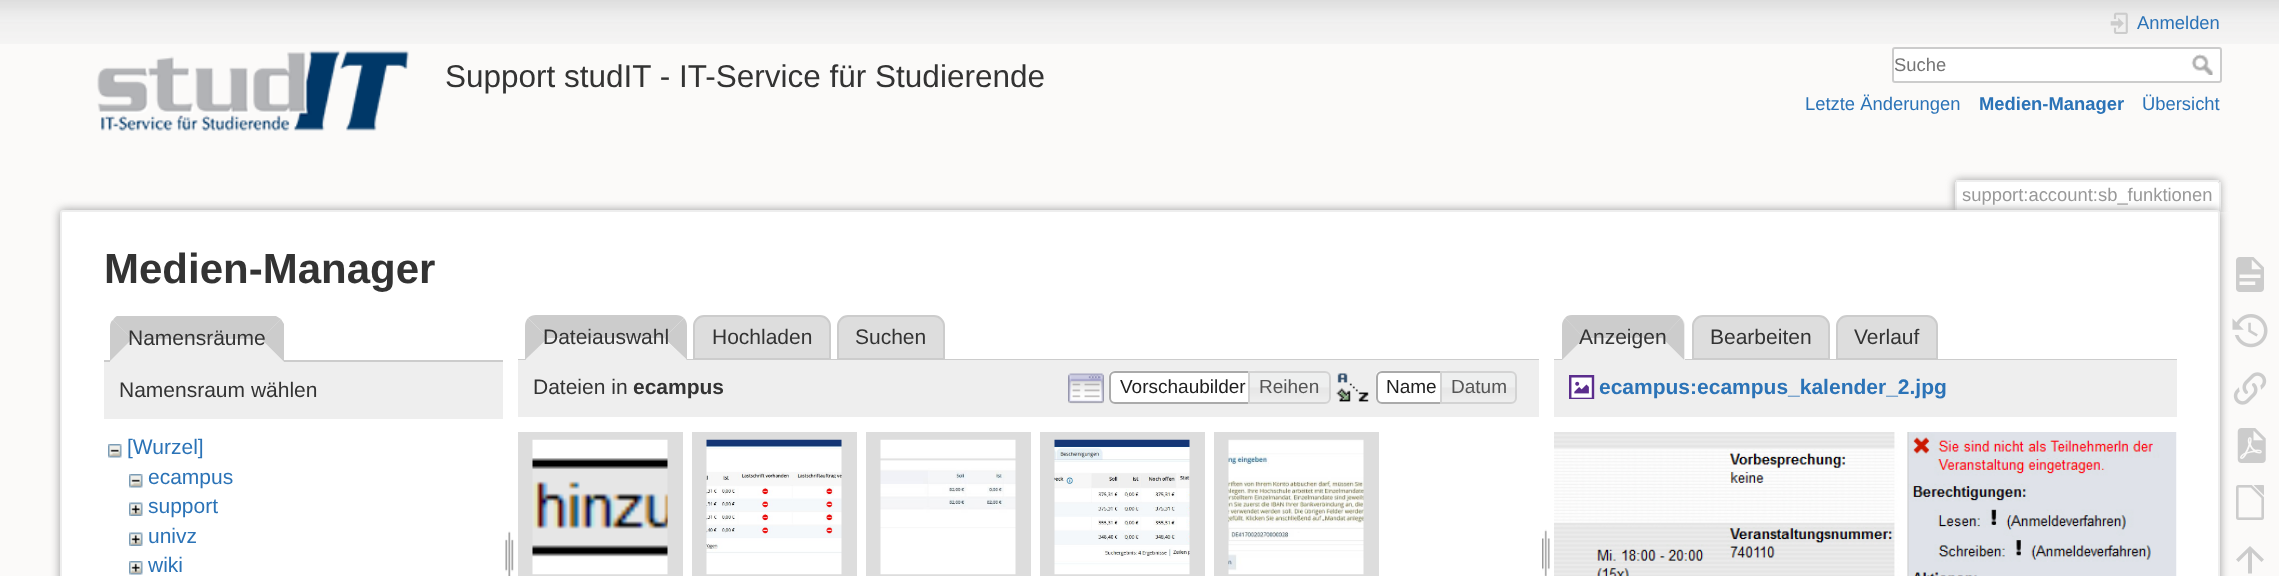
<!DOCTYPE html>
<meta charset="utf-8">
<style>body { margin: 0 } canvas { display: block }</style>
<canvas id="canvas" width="2279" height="576"></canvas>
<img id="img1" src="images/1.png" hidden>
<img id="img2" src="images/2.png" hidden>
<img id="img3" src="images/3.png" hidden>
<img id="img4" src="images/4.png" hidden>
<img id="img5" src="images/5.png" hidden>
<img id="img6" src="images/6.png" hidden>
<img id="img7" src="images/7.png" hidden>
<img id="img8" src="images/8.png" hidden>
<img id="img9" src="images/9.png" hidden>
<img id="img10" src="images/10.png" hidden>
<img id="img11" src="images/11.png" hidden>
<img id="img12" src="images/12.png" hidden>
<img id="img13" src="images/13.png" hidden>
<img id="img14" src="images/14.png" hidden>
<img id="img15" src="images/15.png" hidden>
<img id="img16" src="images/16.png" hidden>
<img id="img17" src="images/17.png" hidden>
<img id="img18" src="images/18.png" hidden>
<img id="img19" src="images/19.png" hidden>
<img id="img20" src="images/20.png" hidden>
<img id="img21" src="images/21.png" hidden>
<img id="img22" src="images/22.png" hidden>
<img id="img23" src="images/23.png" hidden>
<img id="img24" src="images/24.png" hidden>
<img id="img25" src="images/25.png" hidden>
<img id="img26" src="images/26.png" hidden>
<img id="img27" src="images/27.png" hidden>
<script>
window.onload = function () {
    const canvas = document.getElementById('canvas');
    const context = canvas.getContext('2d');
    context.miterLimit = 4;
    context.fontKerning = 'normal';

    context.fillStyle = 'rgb(251, 250, 249)';
    context.fillRect(0, 0, 2279, 576);
    context.drawImage(document.getElementById('img1'), 0, 0, 2279, 44);
    context.drawImage(document.getElementById('img2'), 97, 50, 312, 81);
    context.drawImage(document.getElementById('img3'), 2110, 12, 18, 22);
    context.fillStyle = 'rgb(255, 255, 255)';
    context.beginPath();
    context.roundRect(1893, 48, 328, 34, 2);
    context.fill();
    context.strokeStyle = 'rgb(204, 204, 204)';
    context.lineWidth = 2;
    context.stroke();
    context.drawImage(document.getElementById('img4'), 2191, 54, 22, 21);
    context.save();
    context.beginPath();
    context.rect(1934, 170, 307, 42);
    context.clip();
    context.fillStyle = 'rgb(153, 153, 153)';
    context.filter = 'blur(4.5px)';
    context.beginPath();
    context.roundRect(1955, 180, 265, 32, 3);
    context.fill();
    context.filter = 'none';
    context.restore();
    context.beginPath();
    context.roundRect(1956, 182, 263, 30, [1.5, 1.5, 0, 0]);
    context.fill();
    context.fillStyle = 'rgb(238, 238, 238)';
    context.fillRect(1956, 180, 263, 2);
    context.fillRect(2219, 182, 2, 30);
    context.fillRect(1955, 182, 2, 30);
    context.fillStyle = 'rgb(153, 153, 153)';
    context.filter = 'blur(5px)';
    context.beginPath();
    context.roundRect(60, 210, 2160, 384, 3);
    context.fill();
    context.filter = 'none';
    context.fillStyle = 'rgb(255, 255, 255)';
    context.beginPath();
    context.roundRect(61, 211, 2158, 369, 2);
    context.fill();
    context.strokeStyle = 'rgb(238, 238, 238)';
    context.stroke();
    context.fillStyle = 'rgb(204, 204, 204)';
    context.fillRect(104, 360, 399, 2);
    context.fillStyle = 'rgb(238, 238, 238)';
    context.beginPath();
    context.roundRect(110, 317, 174, 45, [11, 11, 0, 0]);
    context.fill();
    context.fillStyle = 'rgb(204, 204, 204)';
    context.beginPath();
    context.moveTo(276, 316);
    context.lineTo(117, 316);
    context.bezierCurveTo(115, 317, 114, 318, 113, 320);
    context.lineTo(132, 339);
    context.lineTo(261, 339);
    context.lineTo(281, 319);
    context.closePath();
    context.fill();
    context.beginPath();
    context.moveTo(281, 319);
    context.lineTo(261, 339);
    context.lineTo(284, 362);
    context.lineTo(284, 324);
    context.bezierCurveTo(283, 322, 282, 321, 281, 319);
    context.closePath();
    context.fill();
    context.fillStyle = 'rgb(238, 238, 238)';
    context.beginPath();
    context.moveTo(284, 362);
    context.lineTo(261, 339);
    context.lineTo(132, 339);
    context.lineTo(110, 362);
    context.closePath();
    context.fill();
    context.fillStyle = 'rgb(204, 204, 204)';
    context.beginPath();
    context.moveTo(110, 361);
    context.lineTo(132, 339);
    context.lineTo(113, 320);
    context.bezierCurveTo(111, 321, 110, 324, 110, 327);
    context.closePath();
    context.fill();
    context.fillStyle = 'rgb(238, 238, 238)';
    context.fillRect(104, 362, 399, 57);
    context.drawImage(document.getElementById('img5'), 108, 444, 14, 14);
    context.drawImage(document.getElementById('img5'), 129, 474, 14, 14);
    context.drawImage(document.getElementById('img6'), 129, 502, 14, 14);
    context.drawImage(document.getElementById('img6'), 129, 532, 14, 14);
    context.drawImage(document.getElementById('img7'), 129, 561, 14, 14);
    context.drawImage(document.getElementById('img8'), 505, 531, 9, 45);
    context.fillStyle = 'rgb(204, 204, 204)';
    context.beginPath();
    context.moveTo(536, 315);
    context.lineTo(676, 315);
    context.bezierCurveTo(679, 315, 682, 316, 684, 318);
    context.lineTo(664, 338);
    context.lineTo(548, 338);
    context.lineTo(528, 318);
    context.bezierCurveTo(530, 316, 533, 315, 536, 315);
    context.closePath();
    context.fill();
    context.fillStyle = 'rgb(221, 221, 221)';
    context.beginPath();
    context.roundRect(694, 316, 136, 43, [10, 10, 0, 0]);
    context.fill();
    context.strokeStyle = 'rgb(204, 204, 204)';
    context.stroke();
    context.beginPath();
    context.roundRect(838, 316, 106, 43, [10, 10, 0, 0]);
    context.fill();
    context.stroke();
    context.fillStyle = 'rgb(204, 204, 204)';
    context.fillRect(518, 359, 1021, 1);
    context.beginPath();
    context.moveTo(684, 318);
    context.lineTo(664, 338);
    context.lineTo(687, 360);
    context.lineTo(687, 326);
    context.bezierCurveTo(687, 323, 686, 320, 684, 318);
    context.closePath();
    context.fill();
    context.fillStyle = 'rgb(238, 238, 238)';
    context.beginPath();
    context.moveTo(687, 360);
    context.lineTo(664, 338);
    context.lineTo(548, 338);
    context.lineTo(525, 360);
    context.closePath();
    context.fill();
    context.fillStyle = 'rgb(204, 204, 204)';
    context.beginPath();
    context.moveTo(525, 360);
    context.lineTo(525, 326);
    context.bezierCurveTo(525, 323, 526, 320, 528, 318);
    context.lineTo(548, 338);
    context.closePath();
    context.fill();
    context.fillStyle = 'rgb(238, 238, 238)';
    context.fillRect(518, 360, 1021, 57);
    context.drawImage(document.getElementById('img9'), 1068, 373, 36, 31);
    context.fillStyle = 'rgb(255, 255, 255)';
    context.beginPath();
    context.roundRect(1109, 371, 147, 33, [6, 0, 0, 6]);
    context.fill();
    context.drawImage(document.getElementById('img10'), 1108, 370, 147, 31);
    context.beginPath();
    context.roundRect(1110, 372, 145, 31, [5, 0, 0, 5]);
    context.strokeStyle = 'rgb(170, 170, 170)';
    context.stroke();
    context.drawImage(document.getElementById('img11'), 1250, 371, 80, 32);
    context.beginPath();
    context.roundRect(1249, 372, 81, 31, [0, 5, 5, 0]);
    context.strokeStyle = 'rgb(211, 211, 211)';
    context.stroke();
    context.drawImage(document.getElementById('img12'), 1336, 373, 33, 29);
    context.beginPath();
    context.roundRect(1376, 371, 72, 33, [6, 0, 0, 6]);
    context.fill();
    context.drawImage(document.getElementById('img13'), 1375, 370, 72, 31);
    context.beginPath();
    context.roundRect(1377, 372, 70, 31, [5, 0, 0, 5]);
    context.strokeStyle = 'rgb(170, 170, 170)';
    context.stroke();
    context.drawImage(document.getElementById('img14'), 1442, 371, 74, 32);
    context.beginPath();
    context.roundRect(1441, 372, 75, 31, [0, 5, 5, 0]);
    context.strokeStyle = 'rgb(211, 211, 211)';
    context.stroke();
    context.fillStyle = 'rgb(221, 221, 221)';
    context.fillRect(518, 432, 165, 144);
    context.drawImage(document.getElementById('img15'), 532, 439, 136, 136);
    context.fillRect(692, 432, 165, 144);
    context.drawImage(document.getElementById('img16'), 706, 439, 136, 136);
    context.fillRect(866, 432, 165, 144);
    context.drawImage(document.getElementById('img17'), 880, 439, 136, 136);
    context.fillRect(1040, 432, 165, 144);
    context.drawImage(document.getElementById('img18'), 1054, 439, 136, 136);
    context.fillRect(1214, 432, 165, 144);
    context.drawImage(document.getElementById('img19'), 1228, 439, 136, 136);
    context.drawImage(document.getElementById('img20'), 1542, 529, 8, 47);
    context.beginPath();
    context.roundRect(1693, 316, 136, 43, [10, 10, 0, 0]);
    context.fill();
    context.strokeStyle = 'rgb(204, 204, 204)';
    context.stroke();
    context.beginPath();
    context.roundRect(1837, 316, 100, 43, [10, 10, 0, 0]);
    context.fill();
    context.stroke();
    context.fillStyle = 'rgb(204, 204, 204)';
    context.fillRect(1554, 359, 623, 1);
    context.fillStyle = 'rgb(238, 238, 238)';
    context.beginPath();
    context.roundRect(1562, 315, 123, 45, [11, 11, 0, 0]);
    context.fill();
    context.fillStyle = 'rgb(204, 204, 204)';
    context.beginPath();
    context.moveTo(1572, 315);
    context.lineTo(1674, 315);
    context.bezierCurveTo(1677, 315, 1680, 316, 1681, 318);
    context.lineTo(1662, 338);
    context.lineTo(1584, 338);
    context.lineTo(1565, 318);
    context.bezierCurveTo(1566, 316, 1569, 315, 1572, 315);
    context.closePath();
    context.fill();
    context.beginPath();
    context.moveTo(1681, 318);
    context.lineTo(1662, 338);
    context.lineTo(1684, 360);
    context.lineTo(1684, 326);
    context.bezierCurveTo(1684, 323, 1683, 320, 1681, 318);
    context.closePath();
    context.fill();
    context.fillStyle = 'rgb(238, 238, 238)';
    context.beginPath();
    context.moveTo(1684, 360);
    context.lineTo(1662, 338);
    context.lineTo(1584, 338);
    context.lineTo(1562, 360);
    context.closePath();
    context.fill();
    context.fillStyle = 'rgb(204, 204, 204)';
    context.beginPath();
    context.moveTo(1565, 318);
    context.bezierCurveTo(1563, 320, 1562, 323, 1562, 326);
    context.lineTo(1562, 360);
    context.lineTo(1584, 338);
    context.closePath();
    context.fill();
    context.fillStyle = 'rgb(238, 238, 238)';
    context.fillRect(1554, 360, 623, 57);
    context.drawImage(document.getElementById('img21'), 1569, 375, 26, 24);
    context.drawImage(document.getElementById('img22'), 1554, 432, 623, 144);
    context.drawImage(document.getElementById('img23'), 2236, 257, 28, 35);
    context.drawImage(document.getElementById('img24'), 2232, 314, 36, 34);
    context.drawImage(document.getElementById('img25'), 2233, 372, 34, 33);
    context.drawImage(document.getElementById('img26'), 2237, 428, 29, 35);
    context.drawImage(document.getElementById('img27'), 2236, 485, 28, 35);
    context.fillStyle = 'rgb(204, 204, 204)';
    context.beginPath();
    context.moveTo(2252, 573.5);
    context.lineTo(2248, 573.5);
    context.lineTo(2248, 552.5);
    context.lineTo(2238.5, 562);
    context.lineTo(2236, 559.5);
    context.lineTo(2250, 546);
    context.lineTo(2264, 559.5);
    context.lineTo(2261.5, 562);
    context.lineTo(2252, 552.5);
    context.closePath();
    context.fill();
    context.font = '31.5px Liberation Sans';
    context.fillStyle = 'rgb(51, 51, 51)';
    context.fillText('Support studIT - IT-Service für Studierende', 445, 87);
    context.font = '18.4px Liberation Sans';
    context.fillStyle = 'rgb(43, 115, 183)';
    context.fillText('Anmelden', 2137, 29);
    context.fillStyle = 'rgb(117, 117, 117)';
    context.fillText('Suche', 1894, 71);
    context.fillStyle = 'rgb(43, 115, 183)';
    context.fillText('Letzte Änderungen', 1805, 110);
    context.font = 'bold 18.4px Liberation Sans';
    context.fillText('Medien-Manager', 1979, 110);
    context.font = '18.4px Liberation Sans';
    context.fillText('Übersicht', 2142, 110);
    context.fillStyle = 'rgb(153, 153, 153)';
    context.fillText('support:account:sb_funktionen', 1962, 201);
    context.font = 'bold 42px Liberation Sans';
    context.fillStyle = 'rgb(51, 51, 51)';
    context.fillText('Medien-Manager', 104, 283);
    context.font = '21px Liberation Sans';
    context.fillText('Namensräume', 128, 345);
    context.fillText('Namensraum wählen', 119, 397);
    context.fillStyle = 'rgb(43, 115, 183)';
    context.fillText('[Wurzel]', 127, 454);
    context.fillText('ecampus', 148, 484);
    context.fillText('support', 148, 513);
    context.fillText('univz', 148, 543);
    context.fillText('wiki', 148, 572);
    context.fillStyle = 'rgb(51, 51, 51)';
    context.fillText('Dateiauswahl', 543, 344);
    context.fillText('Hochladen', 712, 344);
    context.fillText('Suchen', 855, 344);
    context.fillText('Dateien in', 533, 394);
    context.font = 'bold 21px Liberation Sans';
    context.fillText('ecampus', 633, 394);
    context.font = '19px Liberation Sans';
    context.fillStyle = 'rgb(33, 33, 33)';
    context.fillText('Vorschaubilder', 1120, 393);
    context.fillStyle = 'rgb(85, 85, 85)';
    context.fillText('Reihen', 1259, 393);
    context.fillStyle = 'rgb(33, 33, 33)';
    context.fillText('Name', 1386, 393);
    context.fillStyle = 'rgb(85, 85, 85)';
    context.fillText('Datum', 1451, 393);
    context.font = '21px Liberation Sans';
    context.fillStyle = 'rgb(51, 51, 51)';
    context.fillText('Anzeigen', 1579, 344);
    context.fillText('Bearbeiten', 1710, 344);
    context.fillText('Verlauf', 1854, 344);
    context.font = 'bold 21px Liberation Sans';
    context.fillStyle = 'rgb(43, 115, 183)';
    context.fillText('ecampus:ecampus_kalender_2.jpg', 1599, 394);
};
</script>
